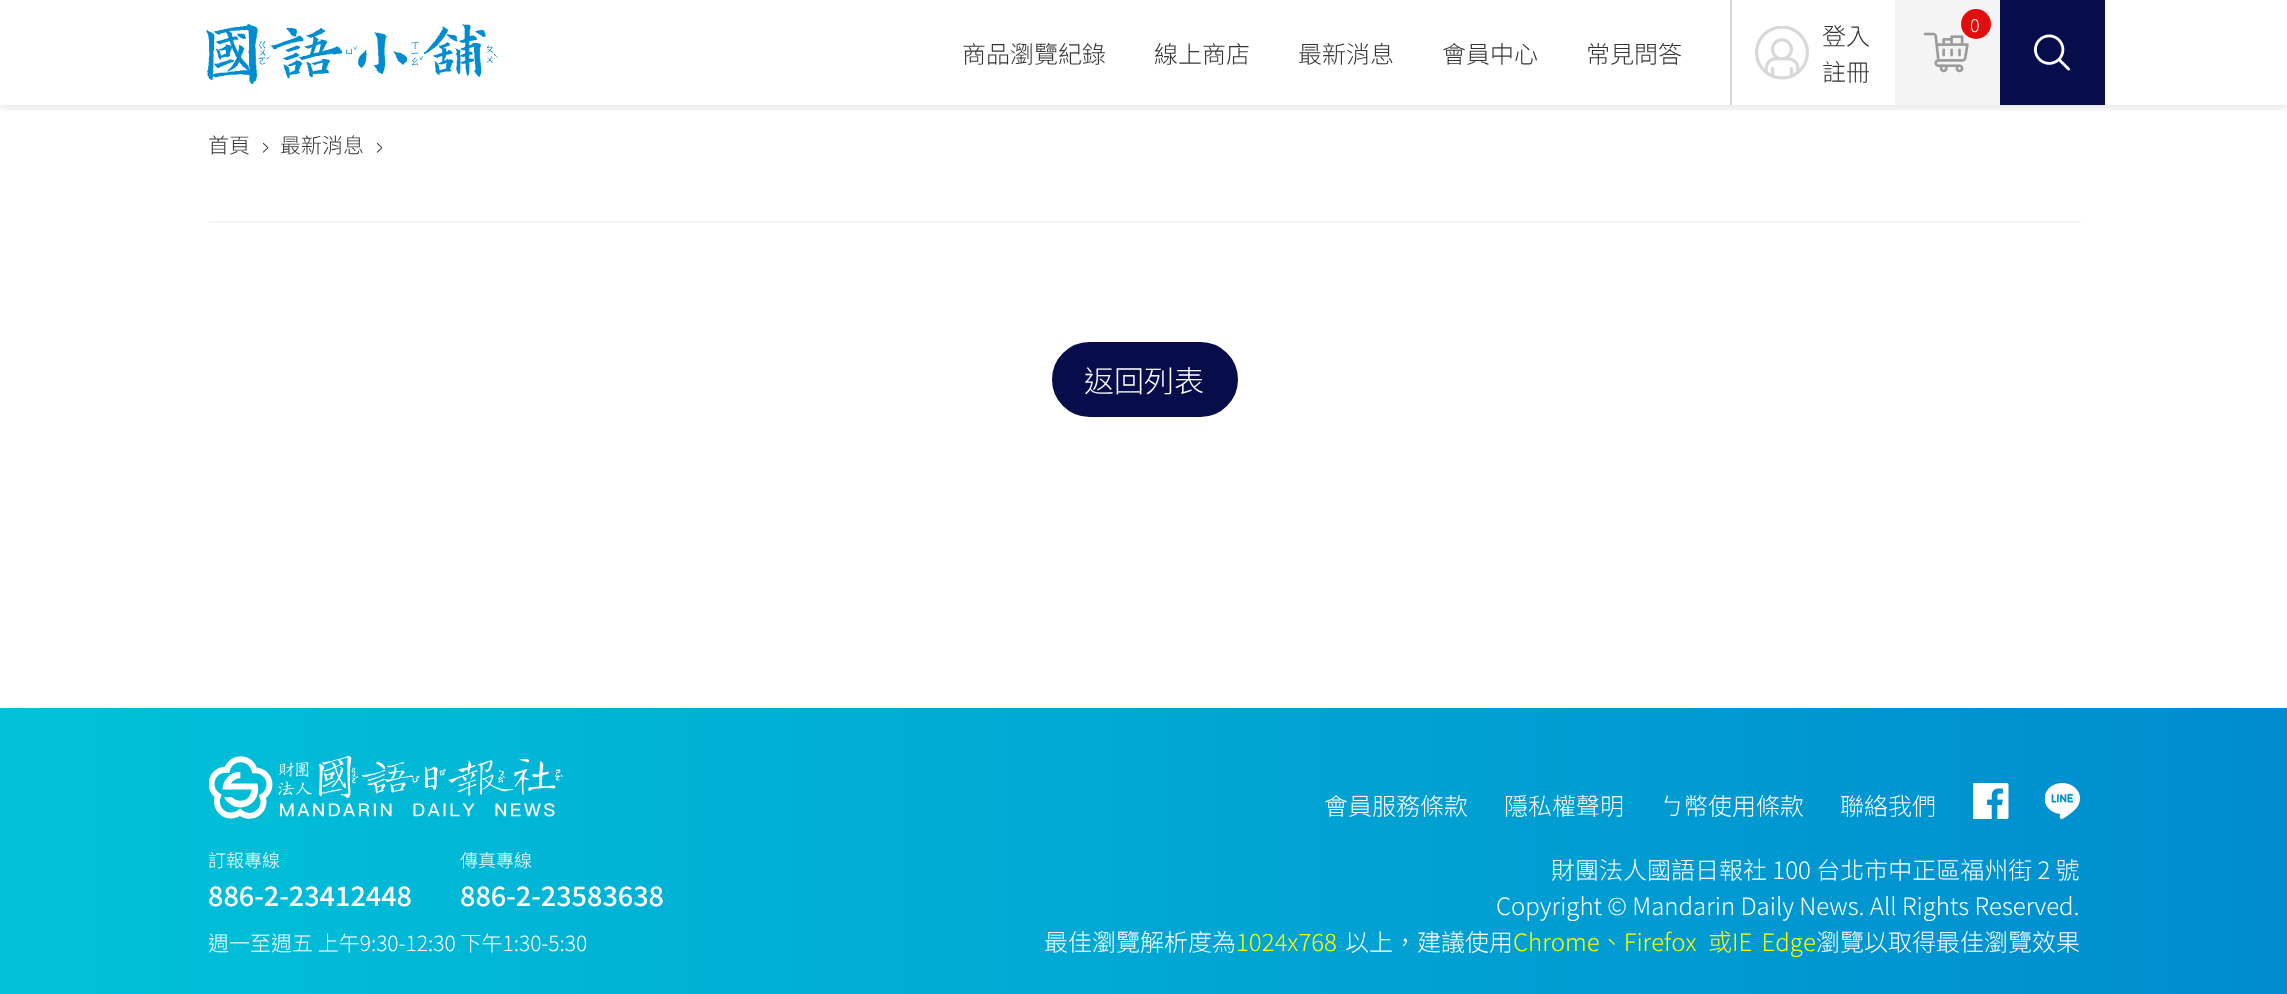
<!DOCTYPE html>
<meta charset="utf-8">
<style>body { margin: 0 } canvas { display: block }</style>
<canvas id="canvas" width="2287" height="994"></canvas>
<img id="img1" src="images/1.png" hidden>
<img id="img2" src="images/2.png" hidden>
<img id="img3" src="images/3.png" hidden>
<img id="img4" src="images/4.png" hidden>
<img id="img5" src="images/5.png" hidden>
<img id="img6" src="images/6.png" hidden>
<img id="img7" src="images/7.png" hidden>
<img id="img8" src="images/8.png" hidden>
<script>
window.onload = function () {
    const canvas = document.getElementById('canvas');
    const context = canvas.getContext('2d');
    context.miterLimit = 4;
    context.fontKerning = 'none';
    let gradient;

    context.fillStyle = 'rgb(255, 255, 255)';
    context.fillRect(0, 0, 2287, 994);
    context.save();
    context.beginPath();
    context.rect(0, 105, 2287, 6);
    context.clip();
    context.fillStyle = 'rgba(0, 0, 0, 0.1)';
    context.filter = 'blur(4px)';
    context.beginPath();
    context.rect(0, 3, 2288, 105);
    context.fill();
    context.filter = 'none';
    context.restore();
    context.drawImage(document.getElementById('img1'), 206, 24, 292, 60);
    context.fillStyle = 'rgb(216, 216, 216)';
    context.fillRect(1730, 0, 2, 105);
    context.drawImage(document.getElementById('img2'), 1755, 26, 54, 54);
    context.fillStyle = 'rgb(244, 244, 244)';
    context.fillRect(1895, 0, 105, 105);
    context.drawImage(document.getElementById('img3'), 1923, 32, 46, 41);
    context.fillStyle = 'rgb(225, 14, 14)';
    context.beginPath();
    context.arc(1976, 24, 15, 0, 2 * Math.PI);
    context.fill();
    context.fillStyle = 'rgb(7, 13, 75)';
    context.fillRect(2000, 0, 105, 105);
    context.drawImage(document.getElementById('img4'), 2034, 34, 36, 37);
    context.drawImage(document.getElementById('img5'), 263, 143, 6, 10);
    context.drawImage(document.getElementById('img5'), 377, 143, 6, 10);
    context.fillStyle = 'rgb(244, 244, 244)';
    context.fillRect(209, 221, 1872, 2);
    context.fillStyle = 'rgb(7, 13, 75)';
    context.beginPath();
    context.roundRect(1053.5, 343.5, 183, 72, 36);
    context.fill();
    context.strokeStyle = 'rgb(7, 13, 75)';
    context.lineWidth = 3;
    context.stroke();
    gradient = context.createLinearGradient(0, 851, 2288, 851);
    gradient.addColorStop(0, 'rgb(1, 194, 216)');
    gradient.addColorStop(1, 'rgb(0, 140, 207)');
    context.fillStyle = gradient;
    context.fillRect(0, 708, 2287, 286);
    context.drawImage(document.getElementById('img6'), 209, 756, 354, 63);
    context.drawImage(document.getElementById('img7'), 1973, 783, 36, 36);
    context.drawImage(document.getElementById('img8'), 2045, 783, 35, 36);
    context.font = '300 24px Noto Sans TC';
    context.fillStyle = 'rgb(51, 51, 51)';
    context.fillText('商品瀏覽紀錄', 962, 63);
    context.fillText('線上商店', 1154, 63);
    context.fillText('最新消息', 1298, 63);
    context.fillText('會員中心', 1442, 63);
    context.fillText('常見問答', 1586, 63);
    context.fillText('登入', 1822, 45);
    context.fillText('註冊', 1822, 81);
    context.font = '300 18px Noto Sans TC';
    context.fillStyle = 'rgb(255, 255, 255)';
    context.fillText('0', 1970, 32);
    context.font = '300 21px Noto Sans TC';
    context.fillStyle = 'rgb(51, 51, 51)';
    context.fillText('首頁', 208, 153);
    context.fillText('最新消息', 280, 153);
    context.font = '300 30px Noto Sans TC';
    context.fillStyle = 'rgb(255, 255, 255)';
    context.fillText('返回列表', 1084, 392);
    context.font = '300 18px Noto Sans TC';
    context.fillText('訂報專線', 208, 867);
    context.font = '500 27px Noto Sans TC';
    context.fillText('886-2-23412448', 208, 906);
    context.font = '300 18px Noto Sans TC';
    context.fillText('傳真專線', 460, 867);
    context.font = '500 27px Noto Sans TC';
    context.fillText('886-2-23583638', 460, 906);
    context.font = '300 21px Noto Sans TC';
    context.fillText('週一至週五 上午9:30-12:30 下午1:30-5:30', 208, 951);
    context.font = '300 24px Noto Sans TC';
    context.fillText('會員服務條款', 1324, 815);
    context.fillText('隱私權聲明', 1504, 815);
    context.fillText('ㄅ幣使用條款', 1660, 815);
    context.fillText('聯絡我們', 1840, 815);
    context.fillText('財團法人國語日報社 100 台北市中正區福州街 2 號', 1551, 879);
    context.fillText('Copyright © Mandarin Daily News. All Rights Reserved.', 1496, 915);
    context.fillText('最佳瀏覽解析度為', 1044, 951);
    context.fillStyle = 'rgb(255, 255, 0)';
    context.fillText('1024x768', 1236, 951);
    context.fillStyle = 'rgb(255, 255, 255)';
    context.fillText('以上，建議使用', 1345, 951);
    context.fillStyle = 'rgb(255, 255, 0)';
    context.fillText('Chrome、Firefox', 1513, 951);
    context.wordSpacing = '4px';
    context.fillText('或IE Edge', 1708, 951);
    context.wordSpacing = '0px';
    context.fillStyle = 'rgb(255, 255, 255)';
    context.fillText('瀏覽以取得最佳瀏覽效果', 1816, 951);
};
</script>
